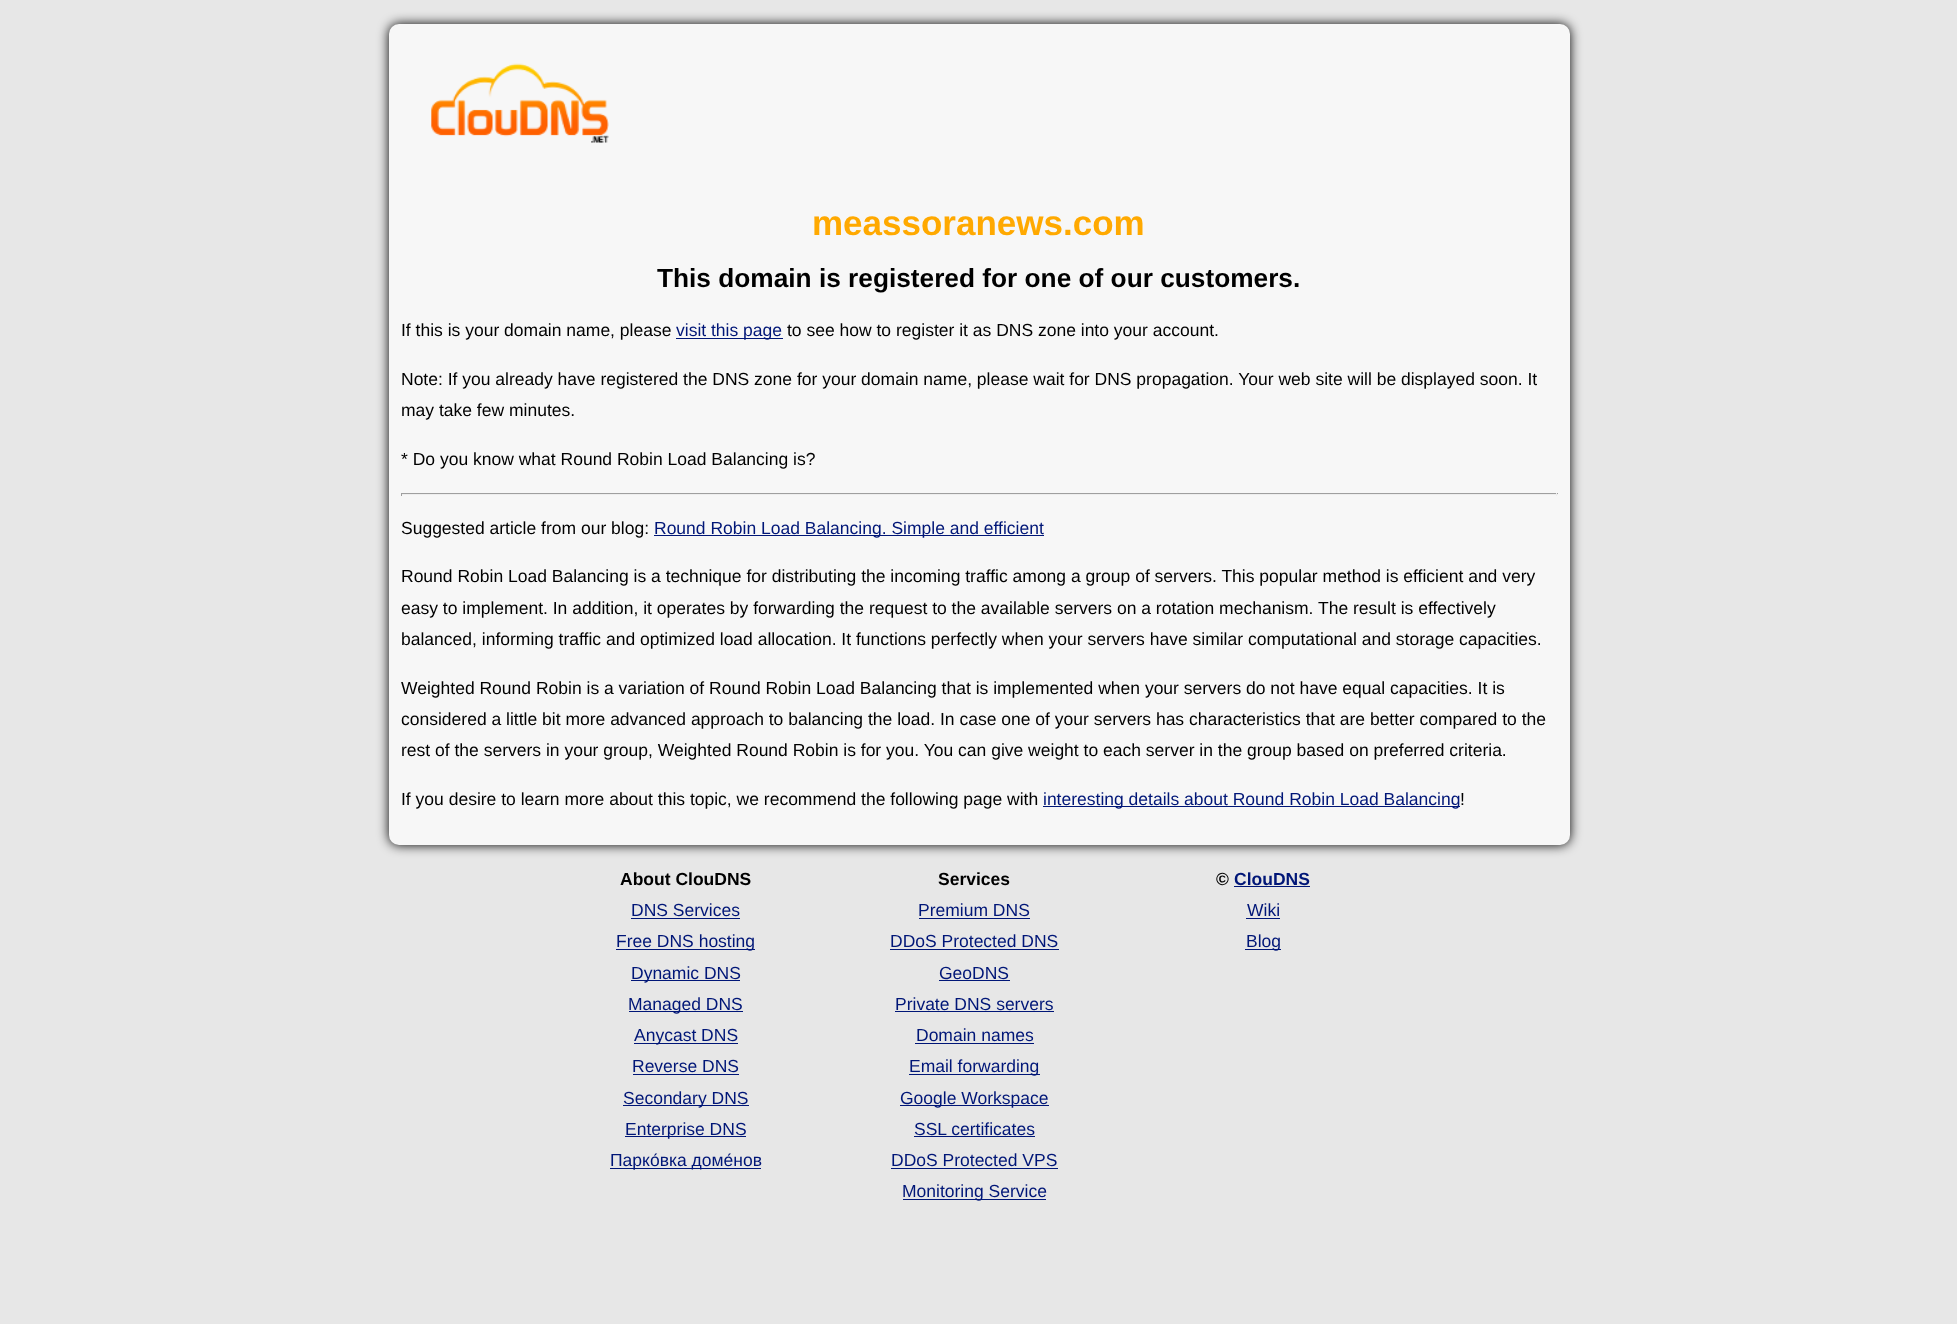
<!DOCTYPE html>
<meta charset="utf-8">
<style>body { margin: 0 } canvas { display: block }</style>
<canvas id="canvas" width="1957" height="1324"></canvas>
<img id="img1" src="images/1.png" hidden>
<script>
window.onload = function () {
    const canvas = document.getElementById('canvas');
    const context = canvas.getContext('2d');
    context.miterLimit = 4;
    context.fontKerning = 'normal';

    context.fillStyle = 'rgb(231, 231, 231)';
    context.fillRect(0, 0, 1957, 1324);
    context.fillStyle = 'rgb(0, 0, 0)';
    context.filter = 'blur(6px)';
    context.beginPath();
    context.roundRect(389, 24, 1181, 821, 10);
    context.fill();
    context.filter = 'none';
    context.fillStyle = 'rgb(247, 247, 247)';
    context.beginPath();
    context.roundRect(389, 24, 1181, 821, 10);
    context.fill();
    context.drawImage(document.getElementById('img1'), 431, 63, 178, 80);
    context.fillStyle = 'rgb(0, 22, 119)';
    context.fillRect(676, 338, 107, 1);
    context.fillStyle = 'rgb(159, 159, 159)';
    context.fillRect(401, 493, 1157, 1);
    context.fillStyle = 'rgb(238, 238, 238)';
    context.fillRect(1556, 493, 1, 3);
    context.fillRect(401, 494, 1157, 1);
    context.fillStyle = 'rgb(159, 159, 159)';
    context.fillRect(401, 493, 1, 3);
    context.fillStyle = 'rgb(0, 22, 119)';
    context.fillRect(654, 535, 390, 1);
    context.fillRect(1043, 806, 417, 1);
    context.fillRect(631, 918, 109, 1);
    context.fillRect(616, 949, 139, 1);
    context.fillRect(631, 980, 109, 1);
    context.fillRect(629, 1011, 114, 1);
    context.fillRect(634, 1043, 104, 1);
    context.fillRect(633, 1074, 106, 1);
    context.fillRect(623, 1105, 126, 1);
    context.fillRect(625, 1136, 121, 1);
    context.fillRect(610, 1168, 151, 1);
    context.fillRect(919, 918, 111, 1);
    context.fillRect(890, 949, 169, 1);
    context.fillRect(939, 980, 71, 1);
    context.fillRect(895, 1011, 159, 1);
    context.fillRect(915, 1043, 119, 1);
    context.fillRect(909, 1074, 131, 1);
    context.fillRect(900, 1105, 149, 1);
    context.fillRect(914, 1136, 121, 1);
    context.fillRect(891, 1168, 167, 1);
    context.fillRect(903, 1199, 143, 1);
    context.fillRect(1234, 886, 76, 1);
    context.fillRect(1246, 918, 34, 1);
    context.fillRect(1245, 949, 36, 1);
    context.font = 'bold 35px Liberation Sans';
    context.fillStyle = 'rgb(255, 169, 0)';
    context.fillText('meassoranews.com', 812, 235);
    context.font = 'bold 26.25px Liberation Sans';
    context.fillStyle = 'rgb(0, 0, 0)';
    context.fillText('This domain is registered for one of our customers.', 657, 287);
    context.font = '17.5px Liberation Sans';
    context.fillText('If this is your domain name, please', 401, 336);
    context.fillStyle = 'rgb(0, 22, 119)';
    context.fillText('visit this page', 676, 336);
    context.fillStyle = 'rgb(0, 0, 0)';
    context.fillText('to see how to register it as DNS zone into your account.', 787, 336);
    context.fillText('Note: If you already have registered the DNS zone for your domain name, please wait for DNS propagation. Your web site will be displayed soon. It', 401, 385);
    context.fillText('may take few minutes.', 401, 416);
    context.fillText('* Do you know what Round Robin Load Balancing is?', 401, 465);
    context.fillText('Suggested article from our blog:', 401, 534);
    context.fillStyle = 'rgb(0, 22, 119)';
    context.fillText('Round Robin Load Balancing. Simple and efficient', 654, 534);
    context.fillStyle = 'rgb(0, 0, 0)';
    context.fillText('Round Robin Load Balancing is a technique for distributing the incoming traffic among a group of servers. This popular method is efficient and very', 401, 582);
    context.fillText('easy to implement. In addition, it operates by forwarding the request to the available servers on a rotation mechanism. The result is effectively', 401, 614);
    context.fillText('balanced, informing traffic and optimized load allocation. It functions perfectly when your servers have similar computational and storage capacities.', 401, 645);
    context.fillText('Weighted Round Robin is a variation of Round Robin Load Balancing that is implemented when your servers do not have equal capacities. It is', 401, 694);
    context.fillText('considered a little bit more advanced approach to balancing the load. In case one of your servers has characteristics that are better compared to the', 401, 725);
    context.fillText('rest of the servers in your group, Weighted Round Robin is for you. You can give weight to each server in the group based on preferred criteria.', 401, 756);
    context.fillText('If you desire to learn more about this topic, we recommend the following page with', 401, 805);
    context.fillStyle = 'rgb(0, 22, 119)';
    context.fillText('interesting details about Round Robin Load Balancing', 1043, 805);
    context.fillStyle = 'rgb(0, 0, 0)';
    context.fillText('!', 1460, 805);
    context.font = 'bold 17.5px Liberation Sans';
    context.fillText('About ClouDNS', 620, 885);
    context.font = '17.5px Liberation Sans';
    context.fillStyle = 'rgb(0, 22, 119)';
    context.fillText('DNS Services', 631, 916);
    context.fillText('Free DNS hosting', 616, 947);
    context.fillText('Dynamic DNS', 631, 979);
    context.fillText('Managed DNS', 628, 1010);
    context.fillText('Anycast DNS', 634, 1041);
    context.fillText('Reverse DNS', 632, 1072);
    context.fillText('Secondary DNS', 623, 1104);
    context.fillText('Enterprise DNS', 625, 1135);
    context.fillText('Парко́вка доме́нов', 610, 1166);
    context.font = 'bold 17.5px Liberation Sans';
    context.fillStyle = 'rgb(0, 0, 0)';
    context.fillText('Services', 938, 885);
    context.font = '17.5px Liberation Sans';
    context.fillStyle = 'rgb(0, 22, 119)';
    context.fillText('Premium DNS', 918, 916);
    context.fillText('DDoS Protected DNS', 890, 947);
    context.fillText('GeoDNS', 939, 979);
    context.fillText('Private DNS servers', 895, 1010);
    context.fillText('Domain names', 916, 1041);
    context.fillText('Email forwarding', 909, 1072);
    context.fillText('Google Workspace', 900, 1104);
    context.fillText('SSL certificates', 914, 1135);
    context.fillText('DDoS Protected VPS', 891, 1166);
    context.fillText('Monitoring Service', 902, 1197);
    context.font = 'bold 17.5px Liberation Sans';
    context.fillStyle = 'rgb(0, 0, 0)';
    context.fillText('©', 1216, 885);
    context.fillStyle = 'rgb(0, 22, 119)';
    context.fillText('ClouDNS', 1234, 885);
    context.font = '17.5px Liberation Sans';
    context.fillText('Wiki', 1247, 916);
    context.fillText('Blog', 1246, 947);
};
</script>
